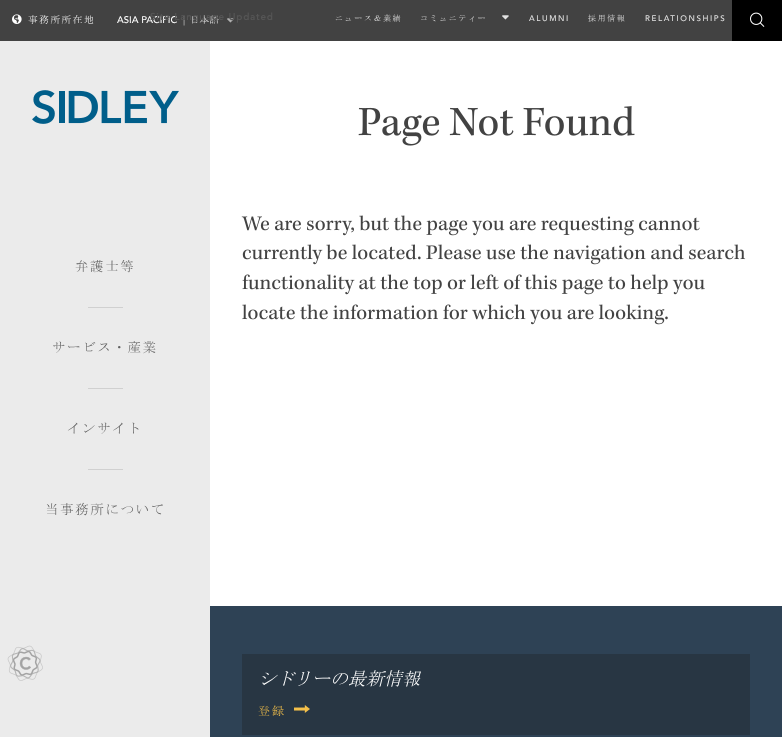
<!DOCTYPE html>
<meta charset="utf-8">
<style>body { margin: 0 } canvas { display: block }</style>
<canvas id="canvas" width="782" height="737"></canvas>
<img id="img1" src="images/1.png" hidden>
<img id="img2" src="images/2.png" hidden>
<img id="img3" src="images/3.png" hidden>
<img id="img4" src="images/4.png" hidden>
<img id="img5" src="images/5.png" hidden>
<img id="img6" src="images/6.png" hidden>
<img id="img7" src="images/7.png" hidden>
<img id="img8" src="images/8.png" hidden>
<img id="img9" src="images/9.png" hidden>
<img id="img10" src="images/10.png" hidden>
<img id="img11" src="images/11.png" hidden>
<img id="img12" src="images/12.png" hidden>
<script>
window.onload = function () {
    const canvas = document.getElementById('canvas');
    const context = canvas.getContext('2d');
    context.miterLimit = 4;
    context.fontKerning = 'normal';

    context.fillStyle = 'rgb(255, 255, 255)';
    context.fillRect(0, 0, 782, 737);
    context.fillStyle = 'rgb(66, 66, 66)';
    context.fillRect(0, 0, 732, 41);
    context.drawImage(document.getElementById('img1'), 12, 14, 10, 10);
    context.drawImage(document.getElementById('img2'), 227, 18, 7, 5);
    context.drawImage(document.getElementById('img3'), 502, 15, 7, 5);
    context.fillStyle = 'rgb(0, 0, 0)';
    context.fillRect(732, 0, 50, 41);
    context.drawImage(document.getElementById('img4'), 750, 12, 15, 15);
    context.fillStyle = 'rgb(235, 235, 235)';
    context.fillRect(0, 41, 210, 696);
    context.fillStyle = 'rgb(208, 208, 208)';
    context.fillRect(88, 307, 35, 1);
    context.fillRect(88, 388, 35, 1);
    context.fillRect(88, 469, 35, 1);
    context.drawImage(document.getElementById('img5'), 32, 90, 147, 34);
    context.drawImage(document.getElementById('img6'), 358, 106, 277, 40);
    context.drawImage(document.getElementById('img7'), 241, 215, 459, 21);
    context.drawImage(document.getElementById('img8'), 242, 244, 504, 21);
    context.drawImage(document.getElementById('img9'), 242, 274, 463, 21);
    context.drawImage(document.getElementById('img10'), 242, 304, 426, 21);
    context.drawImage(document.getElementById('img11'), 7, 645, 36, 36);
    context.fillStyle = 'rgb(46, 66, 85)';
    context.fillRect(210, 606, 572, 131);
    context.fillStyle = 'rgb(40, 54, 67)';
    context.fillRect(242, 654, 508, 81);
    context.drawImage(document.getElementById('img12'), 294, 705, 16, 8);
    context.letterSpacing = '1.6px';
    context.font = '9.6px "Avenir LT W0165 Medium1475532"';
    context.fillStyle = 'rgb(255, 255, 255)';
    context.fillText('事務所所在地', 28, 23);
    context.letterSpacing = '0px';
    context.font = '500 9.6px "Avenir LT W0165 Medium1475532"';
    context.fillText('ASIA PACIFIC', 117, 23);
    context.fillStyle = 'rgb(176, 176, 176)';
    context.fillText('|', 183, 23);
    context.font = '9.6px "Avenir LT W0165 Medium1475532"';
    context.fillStyle = 'rgb(255, 255, 255)';
    context.fillText('日本語', 190, 23);
    context.letterSpacing = '1px';
    context.font = 'bold 9.6px "Avenir LT W0165 Medium1475532"';
    context.fillStyle = 'rgb(85, 85, 85)';
    context.fillText('Site Language Updated', 150, 20);
    context.letterSpacing = '1.6px';
    context.font = '8px "Avenir LT W0165 Medium1475532"';
    context.fillStyle = 'rgb(226, 226, 226)';
    context.fillText('ニュース＆業績', 335, 21);
    context.fillText('コミュニティー', 420, 21);
    context.font = '500 8px "Avenir LT W0165 Medium1475532"';
    context.fillText('ALUMNI', 529, 21);
    context.font = '8px "Avenir LT W0165 Medium1475532"';
    context.fillText('採用情報', 588, 21);
    context.font = '500 8px "Avenir LT W0165 Medium1475532"';
    context.fillText('RELATIONSHIPS', 645, 21);
    context.font = '13.5px "Avenir LT W0165 Medium1475532"';
    context.fillStyle = 'rgb(96, 96, 96)';
    context.fillText('弁護士等', 75, 271);
    context.fillText('サービス・産業', 52, 352);
    context.fillText('インサイト', 67, 433);
    context.fillText('当事務所について', 45, 514);
    context.letterSpacing = '0px';
    context.font = 'italic 18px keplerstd';
    context.fillStyle = 'rgb(255, 255, 255)';
    context.fillText('シドリーの最新情報', 258, 685);
    context.letterSpacing = '2px';
    context.font = '12px "Avenir LT W0165 Medium1475532"';
    context.fillStyle = 'rgb(244, 192, 74)';
    context.fillText('登録', 258, 715);
};
</script>
